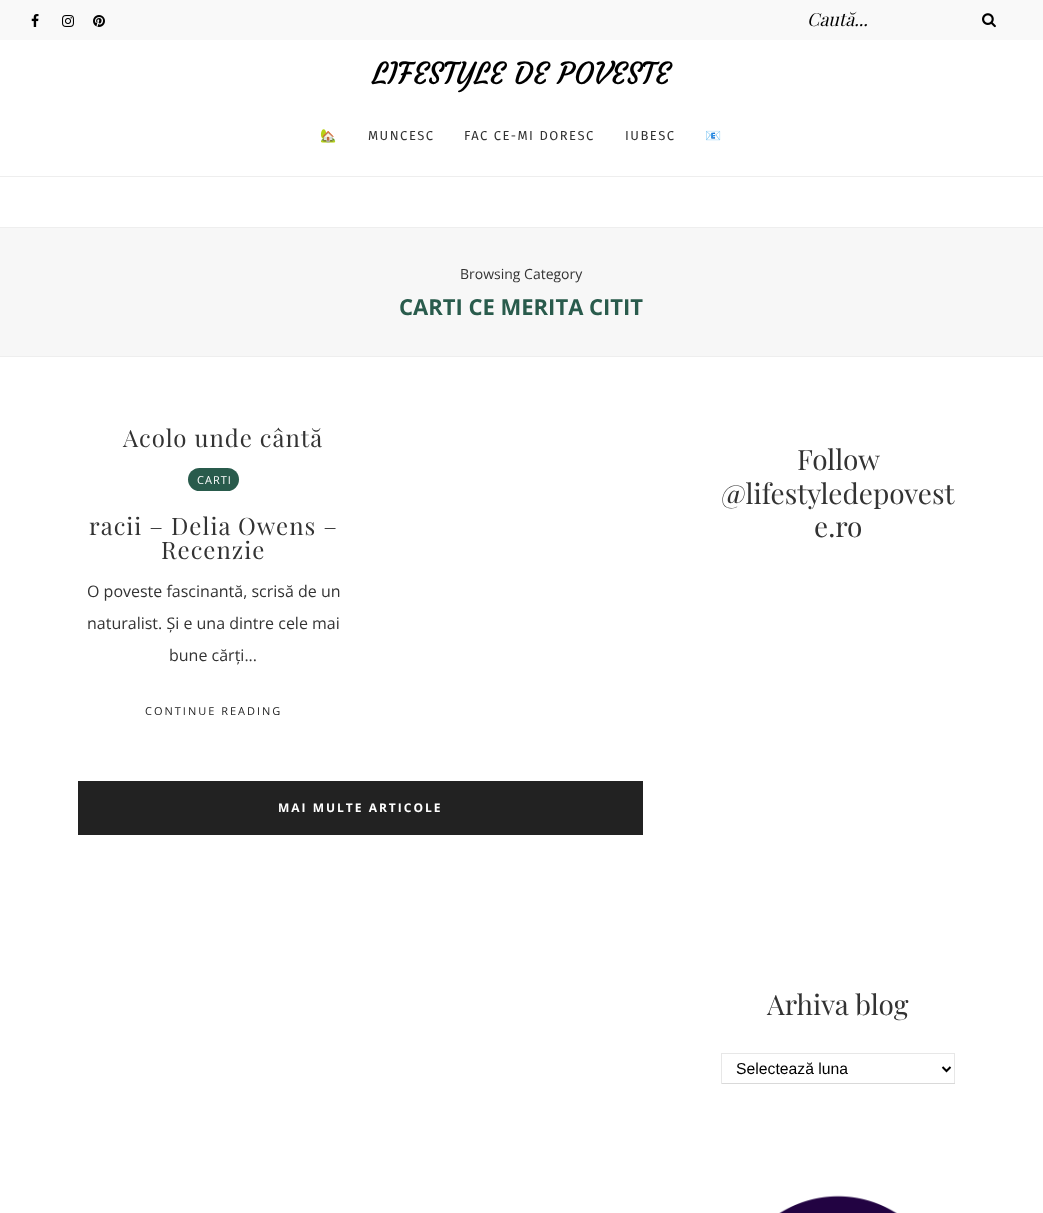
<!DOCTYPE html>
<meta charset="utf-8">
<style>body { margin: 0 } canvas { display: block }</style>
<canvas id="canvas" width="1043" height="1213"></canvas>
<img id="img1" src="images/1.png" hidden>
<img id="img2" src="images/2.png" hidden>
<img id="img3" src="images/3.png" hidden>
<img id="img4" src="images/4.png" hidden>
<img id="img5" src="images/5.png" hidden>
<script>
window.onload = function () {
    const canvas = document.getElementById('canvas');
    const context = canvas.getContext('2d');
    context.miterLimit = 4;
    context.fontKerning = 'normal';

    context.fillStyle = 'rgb(255, 255, 255)';
    context.fillRect(0, 0, 1043, 1213);
    context.fillStyle = 'rgb(249, 249, 249)';
    context.fillRect(0, 0, 1043, 40);
    context.drawImage(document.getElementById('img1'), 31, 14, 8, 13);
    context.drawImage(document.getElementById('img2'), 62, 15, 12, 12);
    context.drawImage(document.getElementById('img3'), 93, 15, 12, 12);
    context.drawImage(document.getElementById('img4'), 982, 13, 14, 15);
    context.fillStyle = 'rgb(238, 238, 238)';
    context.fillRect(0, 176, 1043, 1);
    context.fillStyle = 'rgb(247, 247, 247)';
    context.fillRect(0, 228, 1043, 128);
    context.fillStyle = 'rgb(238, 238, 238)';
    context.fillRect(0, 227, 1043, 1);
    context.fillRect(0, 356, 1043, 1);
    context.fillStyle = 'rgb(41, 91, 76)';
    context.beginPath();
    context.roundRect(188, 468, 51, 23, 11.5);
    context.fill();
    context.fillStyle = 'rgb(34, 34, 34)';
    context.fillRect(78, 781, 565, 54);
    context.fillStyle = 'rgb(231, 231, 231)';
    context.fillRect(721, 1053, 234, 1);
    context.fillRect(954, 1053, 1, 31);
    context.fillStyle = 'rgb(217, 217, 217)';
    context.fillRect(721, 1083, 234, 1);
    context.fillStyle = 'rgb(231, 231, 231)';
    context.fillRect(721, 1053, 1, 31);
    context.beginPath();
    context.moveTo(942.5, 1067);
    context.lineTo(946.5, 1071);
    context.lineTo(950.5, 1067);
    context.strokeStyle = 'rgb(0, 0, 0)';
    context.lineWidth = 2;
    context.stroke();
    context.drawImage(document.getElementById('img5'), 779, 1195, 118, 18);
    context.font = 'italic 18px Playfair Display';
    context.fillStyle = 'rgb(0, 0, 0)';
    context.fillText('Caută...', 807, 26);
    context.font = '30px Courgette';
    context.fillText('LIFESTYLE DE POVESTE', 372, 84);
    context.letterSpacing = '1.5px';
    context.font = '13px Noto Color Emoji';
    context.fillStyle = 'rgb(51, 51, 51)';
    context.fillText('🏡', 320, 140);
    context.font = '13px Fira Sans';
    context.fillText('MUNCESC', 368, 140);
    context.fillText('FAC CE-MI DORESC', 464, 140);
    context.fillText('IUBESC', 625, 140);
    context.font = '13px Noto Color Emoji';
    context.fillText('📧', 705, 140);
    context.letterSpacing = '0px';
    context.font = '14px Open Sans';
    context.fillText('Browsing Category', 460, 279);
    context.font = 'bold 22px Open Sans';
    context.fillStyle = 'rgb(41, 91, 76)';
    context.fillText('CARTI CE MERITA CITIT', 399, 315);
    context.letterSpacing = '1px';
    context.font = '24px Playfair Display';
    context.fillStyle = 'rgb(51, 51, 51)';
    context.fillText('Acolo unde cântă', 123, 447);
    context.fillText('racii – Delia Owens –', 89, 535);
    context.fillText('Recenzie', 161, 559);
    context.font = '11px Open Sans';
    context.fillStyle = 'rgb(255, 255, 255)';
    context.fillText('CARTI', 197, 484);
    context.letterSpacing = '0px';
    context.font = '16px Open Sans';
    context.fillStyle = 'rgb(51, 51, 51)';
    context.fillText('O poveste fascinantă, scrisă de un', 87, 597);
    context.fillText('naturalist. Și e una dintre cele mai', 87, 629);
    context.fillText('bune cărți...', 169, 661);
    context.letterSpacing = '2px';
    context.font = '11px Open Sans';
    context.fillStyle = 'rgb(34, 34, 34)';
    context.fillText('CONTINUE READING', 145, 715);
    context.font = 'bold 12px Open Sans';
    context.fillStyle = 'rgb(255, 255, 255)';
    context.fillText('MAI MULTE ARTICOLE', 278, 812);
    context.letterSpacing = '0px';
    context.font = '28px Playfair Display';
    context.fillStyle = 'rgb(51, 51, 51)';
    context.fillText('Follow', 797, 470);
    context.fillText('@lifestyledepovest', 721, 504);
    context.fillText('e.ro', 814, 537);
    context.fillText('Arhiva blog', 767, 1015);
    context.font = '15.75px Liberation Sans';
    context.fillStyle = 'rgb(0, 0, 0)';
    context.fillText('Selectează luna', 736, 1074);
};
</script>
